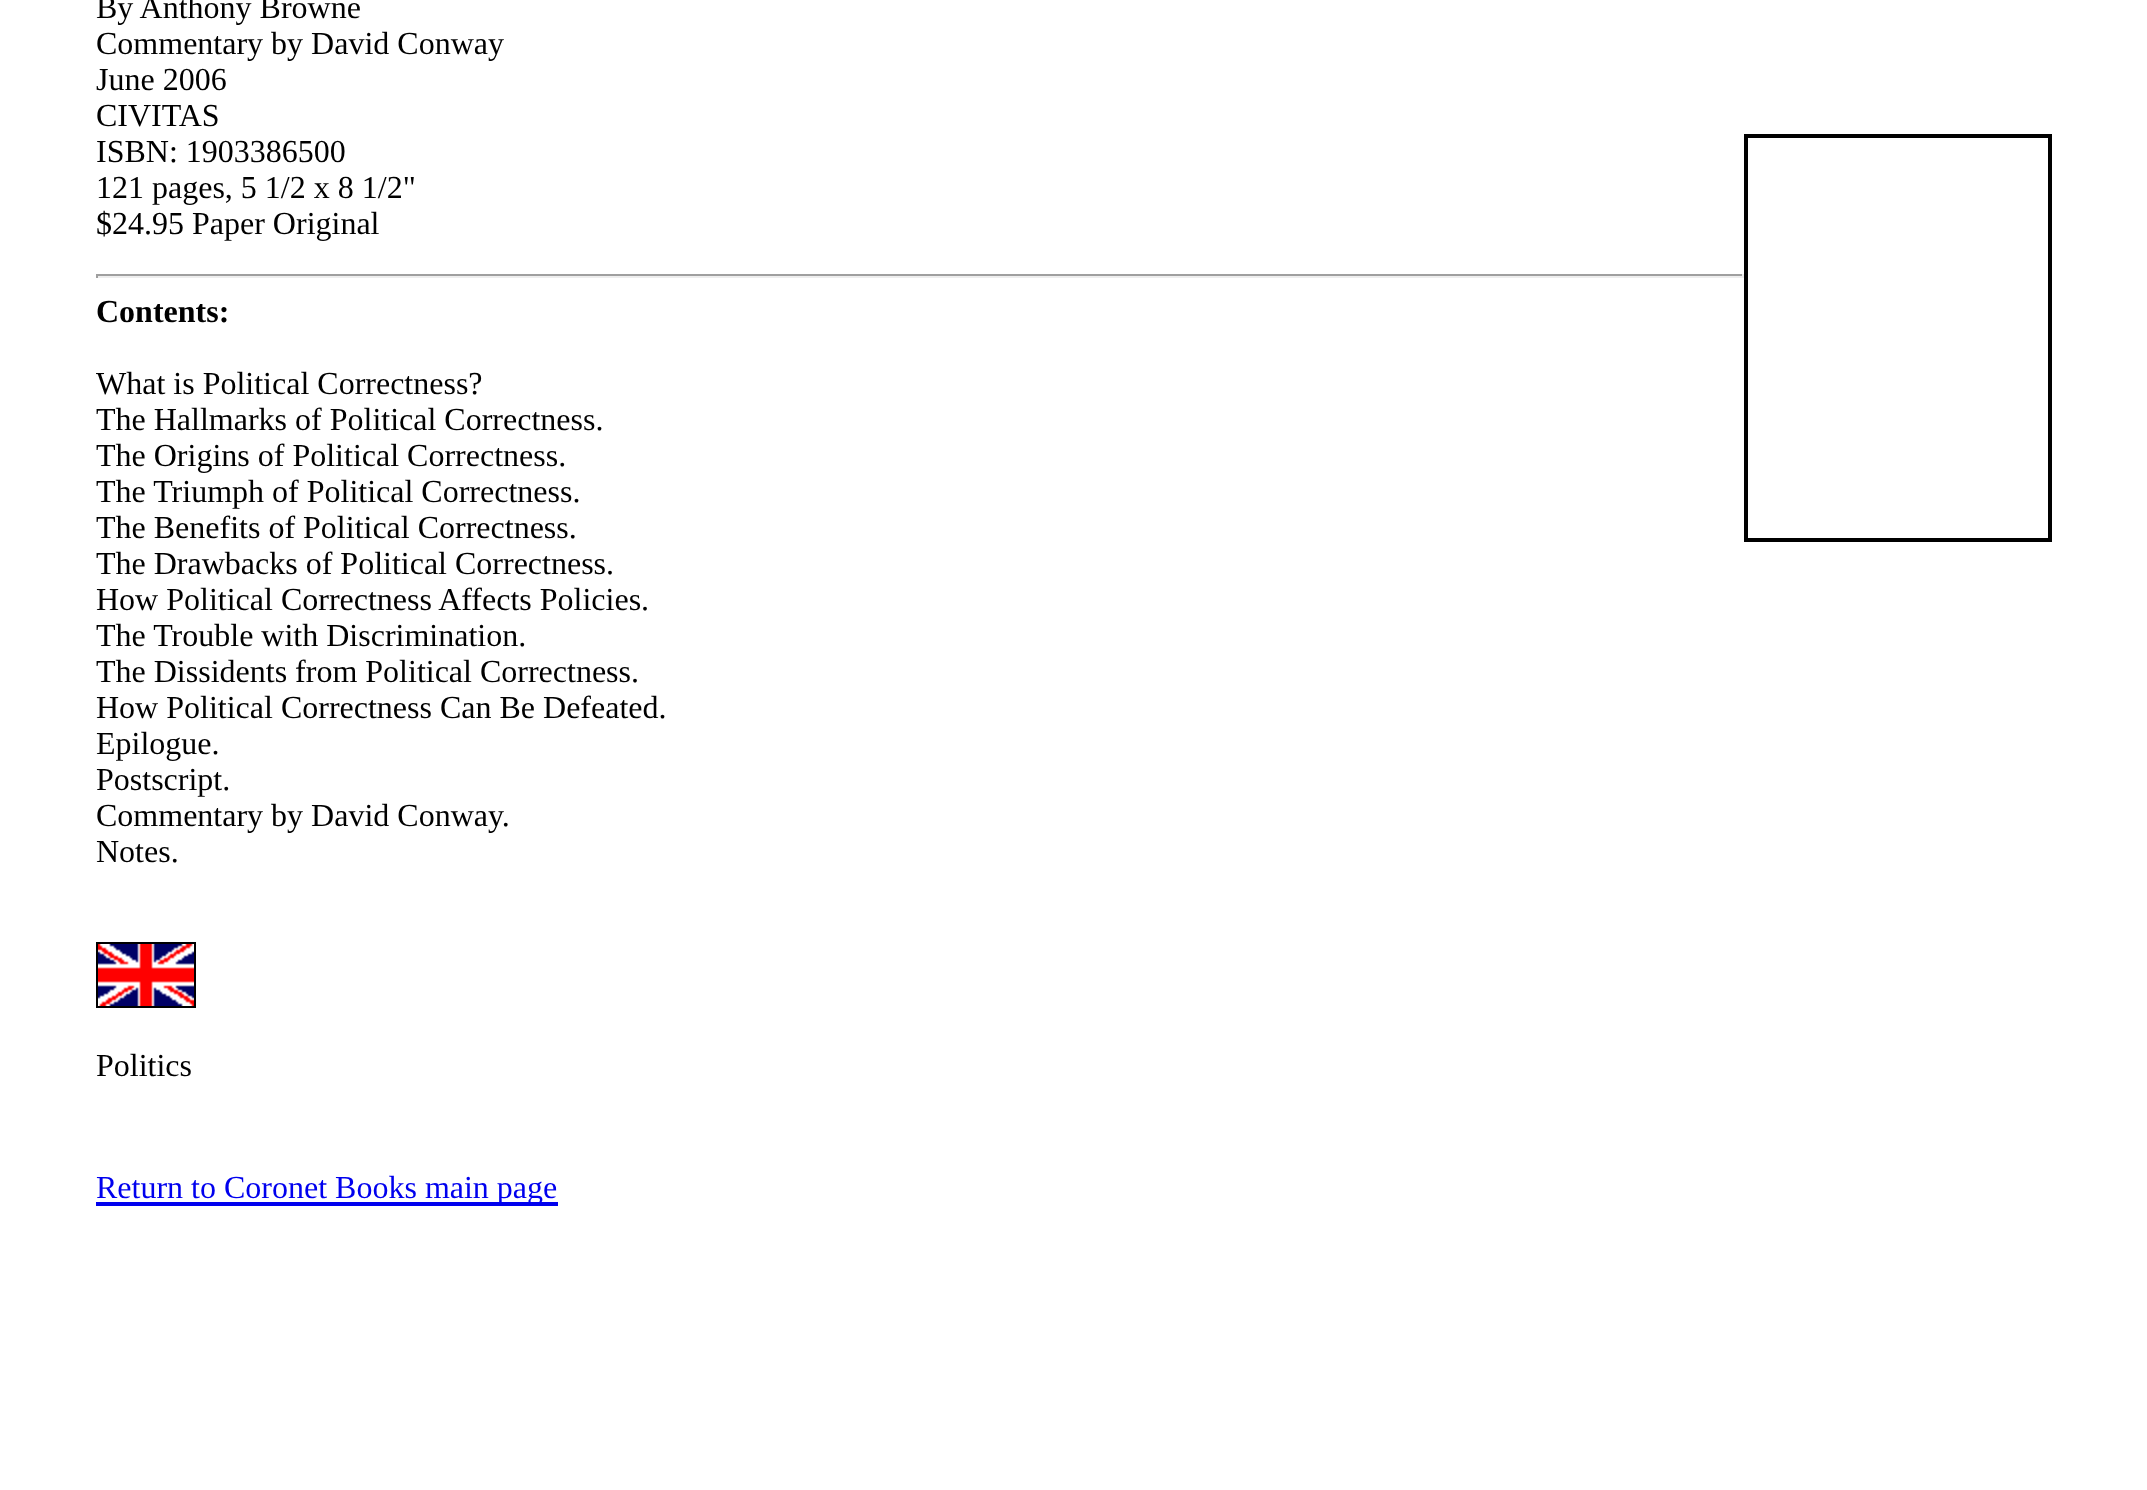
<!DOCTYPE html>
<meta charset="utf-8">
<style>body { margin: 0 } canvas { display: block }</style>
<canvas id="canvas" width="2147" height="1490"></canvas>
<img id="img1" src="images/1.png" hidden>
<script>
window.onload = function () {
    const canvas = document.getElementById('canvas');
    const context = canvas.getContext('2d');
    context.miterLimit = 4;
    context.fontKerning = 'normal';

    context.fillStyle = 'rgb(255, 255, 255)';
    context.fillRect(0, 0, 2147, 1490);
    context.strokeStyle = 'rgb(0, 0, 0)';
    context.lineWidth = 4;
    context.strokeRect(1746, 136, 304, 404);
    context.fillStyle = 'rgb(159, 159, 159)';
    context.fillRect(96, 274, 1648, 2);
    context.fillStyle = 'rgb(238, 238, 238)';
    context.fillRect(1742, 274, 2, 4);
    context.fillRect(96, 276, 1648, 2);
    context.fillStyle = 'rgb(159, 159, 159)';
    context.fillRect(96, 274, 2, 4);
    context.lineWidth = 2;
    context.strokeRect(97, 943, 98, 64);
    context.drawImage(document.getElementById('img1'), 98, 944, 96, 62);
    context.fillStyle = 'rgb(0, 0, 238)';
    context.fillRect(96, 1202, 462, 4);
    context.font = '32px Liberation Serif';
    context.fillStyle = 'rgb(0, 0, 0)';
    context.fillText('By Anthony Browne', 96, 18);
    context.fillText('Commentary by David Conway', 96, 54);
    context.fillText('June 2006', 96, 90);
    context.fillText('CIVITAS', 96, 126);
    context.fillText('ISBN: 1903386500', 96, 162);
    context.fillText('121 pages, 5 1/2 x 8 1/2"', 96, 198);
    context.fillText('$24.95 Paper Original', 96, 234);
    context.font = 'bold 32px Liberation Serif';
    context.fillText('Contents:', 96, 322);
    context.font = '32px Liberation Serif';
    context.fillText('What is Political Correctness?', 96, 394);
    context.fillText('The Hallmarks of Political Correctness.', 96, 430);
    context.fillText('The Origins of Political Correctness.', 96, 466);
    context.fillText('The Triumph of Political Correctness.', 96, 502);
    context.fillText('The Benefits of Political Correctness.', 96, 538);
    context.fillText('The Drawbacks of Political Correctness.', 96, 574);
    context.fillText('How Political Correctness Affects Policies.', 96, 610);
    context.fillText('The Trouble with Discrimination.', 96, 646);
    context.fillText('The Dissidents from Political Correctness.', 96, 682);
    context.fillText('How Political Correctness Can Be Defeated.', 96, 718);
    context.fillText('Epilogue.', 96, 754);
    context.fillText('Postscript.', 96, 790);
    context.fillText('Commentary by David Conway.', 96, 826);
    context.fillText('Notes.', 96, 862);
    context.fillText('Politics', 96, 1076);
    context.fillStyle = 'rgb(0, 0, 238)';
    context.fillText('Return to Coronet Books main page', 96, 1198);
};
</script>
